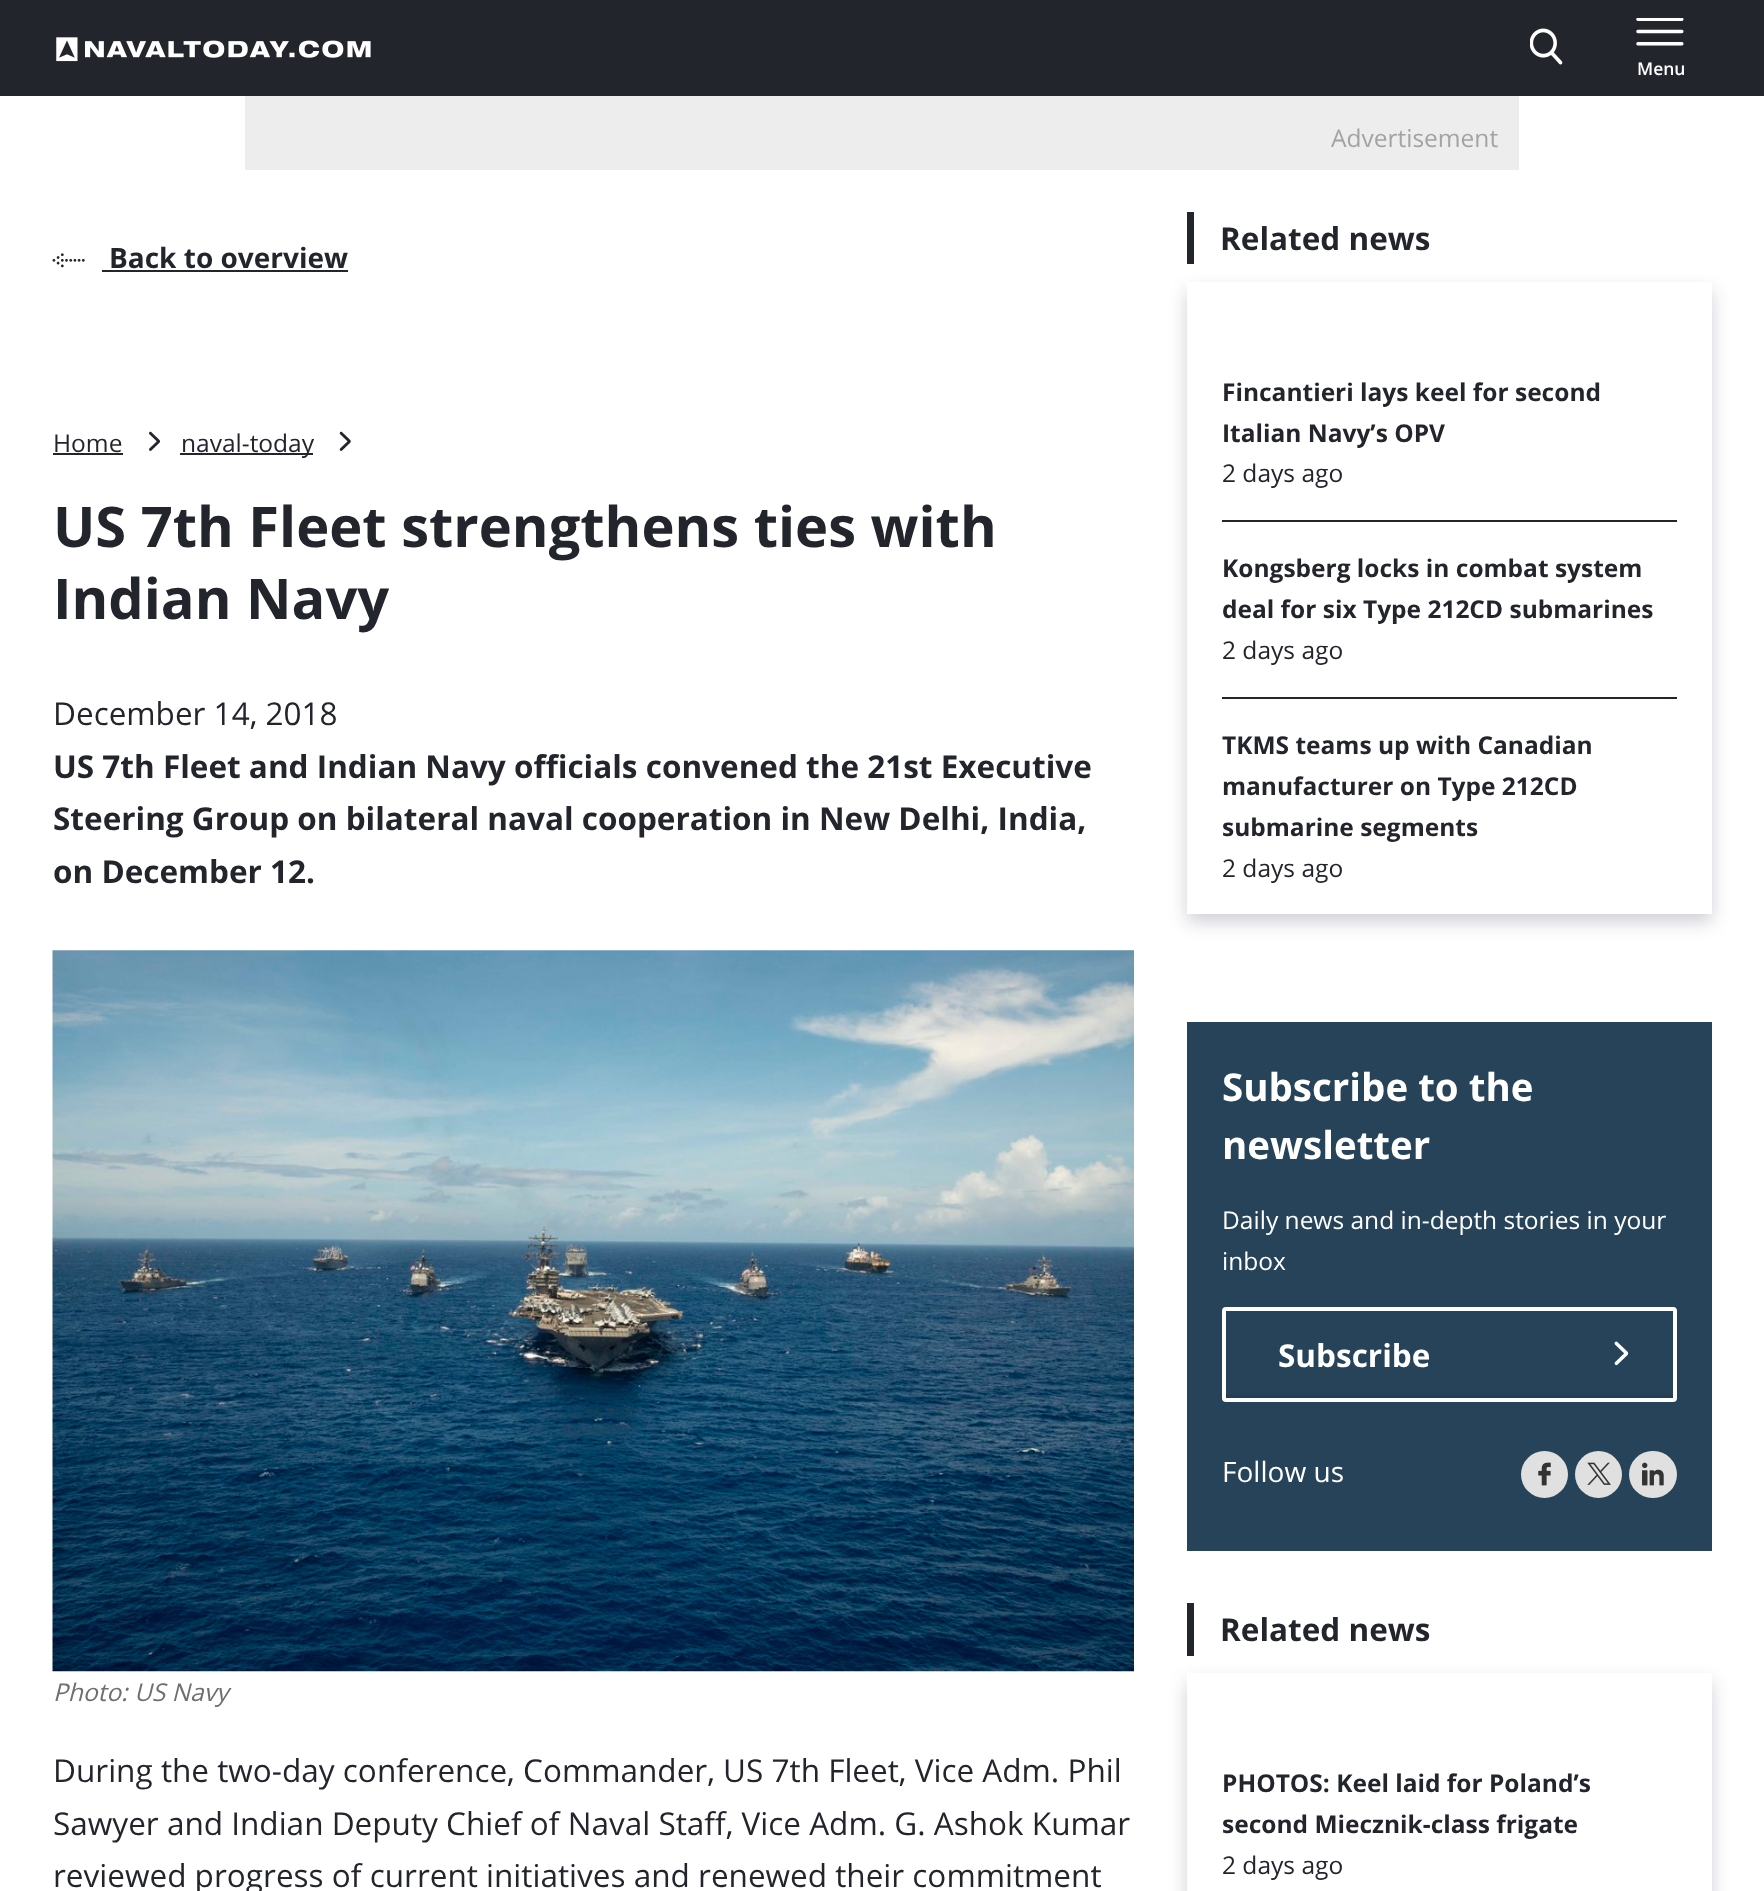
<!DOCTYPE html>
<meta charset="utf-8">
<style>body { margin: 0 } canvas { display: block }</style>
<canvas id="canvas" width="1764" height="1891"></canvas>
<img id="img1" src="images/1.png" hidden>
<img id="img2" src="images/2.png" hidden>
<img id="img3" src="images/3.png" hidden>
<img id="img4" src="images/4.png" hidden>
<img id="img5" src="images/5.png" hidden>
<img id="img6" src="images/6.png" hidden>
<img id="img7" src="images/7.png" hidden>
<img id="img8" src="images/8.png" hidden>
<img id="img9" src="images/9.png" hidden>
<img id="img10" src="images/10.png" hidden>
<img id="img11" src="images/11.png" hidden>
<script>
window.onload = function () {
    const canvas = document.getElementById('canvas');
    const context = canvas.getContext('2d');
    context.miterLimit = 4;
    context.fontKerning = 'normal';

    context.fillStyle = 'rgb(255, 255, 255)';
    context.fillRect(0, 0, 1764, 1891);
    context.fillStyle = 'rgb(35, 37, 44)';
    context.fillRect(0, 0, 1764, 96);
    context.drawImage(document.getElementById('img1'), 56, 37, 315, 25);
    context.drawImage(document.getElementById('img2'), 1530, 28, 33, 37);
    context.drawImage(document.getElementById('img3'), 1636, 18, 48, 28);
    context.fillStyle = 'rgb(237, 237, 237)';
    context.fillRect(245, 96, 1274, 74);
    context.drawImage(document.getElementById('img4'), 52, 253, 33, 15);
    context.fillStyle = 'rgb(35, 37, 44)';
    context.fillRect(102, 270, 246, 2);
    context.fillRect(53, 453, 70, 2);
    context.drawImage(document.getElementById('img5'), 149, 431, 11, 20);
    context.fillRect(180, 453, 133, 2);
    context.drawImage(document.getElementById('img6'), 339, 431, 12, 20);
    context.drawImage(document.getElementById('img7'), 52, 950, 1082, 722);
    context.fillRect(1187, 212, 7, 52);
    context.save();
    context.beginPath();
    context.moveTo(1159, 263);
    context.lineTo(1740, 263);
    context.lineTo(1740, 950);
    context.lineTo(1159, 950);
    context.closePath();
    context.moveTo(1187, 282);
    context.lineTo(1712, 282);
    context.lineTo(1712, 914);
    context.lineTo(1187, 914);
    context.closePath();
    context.clip('evenodd');
    context.fillStyle = 'rgba(20, 14, 50, 0.2)';
    context.filter = 'blur(9px)';
    context.beginPath();
    context.rect(1187, 291, 525, 631);
    context.fill();
    context.filter = 'none';
    context.restore();
    context.fillRect(1222, 520, 455, 2);
    context.fillRect(1222, 697, 455, 2);
    context.fillStyle = 'rgb(39, 67, 89)';
    context.fillRect(1187, 1022, 525, 529);
    context.fillStyle = 'rgb(38, 61, 80)';
    context.fillRect(1225, 1395, 448, 3);
    context.beginPath();
    context.roundRect(1224, 1309, 451, 91, 2);
    context.strokeStyle = 'rgb(255, 255, 255)';
    context.lineWidth = 4;
    context.stroke();
    context.drawImage(document.getElementById('img8'), 1614, 1341, 15, 25);
    context.fillStyle = 'rgb(224, 224, 224)';
    context.beginPath();
    context.arc(1544.5, 1474.5, 23.5, 0, 2 * Math.PI);
    context.fill();
    context.drawImage(document.getElementById('img9'), 1538, 1462, 13, 24);
    context.beginPath();
    context.arc(1598.5, 1474.5, 23.5, 0, 2 * Math.PI);
    context.fill();
    context.drawImage(document.getElementById('img10'), 1587, 1462, 24, 23);
    context.beginPath();
    context.roundRect(1629, 1451, 48, 47, 23.5);
    context.fill();
    context.drawImage(document.getElementById('img11'), 1642, 1462, 22, 24);
    context.fillStyle = 'rgb(35, 37, 44)';
    context.fillRect(1187, 1603, 7, 53);
    context.save();
    context.beginPath();
    context.moveTo(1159, 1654);
    context.lineTo(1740, 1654);
    context.lineTo(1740, 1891);
    context.lineTo(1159, 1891);
    context.closePath();
    context.moveTo(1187, 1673);
    context.lineTo(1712, 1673);
    context.lineTo(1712, 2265);
    context.lineTo(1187, 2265);
    context.closePath();
    context.clip('evenodd');
    context.fillStyle = 'rgba(20, 14, 50, 0.2)';
    context.filter = 'blur(9px)';
    context.beginPath();
    context.rect(1187, 1682, 525, 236);
    context.fill();
    context.filter = 'none';
    context.restore();
    context.font = '600 17.5px Open Sans';
    context.fillStyle = 'rgb(255, 255, 255)';
    context.fillText('Menu', 1637, 75);
    context.font = '24.5px Open Sans';
    context.fillStyle = 'rgb(163, 163, 163)';
    context.fillText('Advertisement', 1331, 147);
    context.font = 'bold 28px Open Sans';
    context.fillStyle = 'rgb(35, 37, 44)';
    context.fillText('Back to overview', 109, 268);
    context.font = '24.5px Open Sans';
    context.fillText('Home', 53, 452);
    context.fillText('naval-today', 181, 452);
    context.font = 'bold 56px Open Sans';
    context.fillText('US 7th Fleet strengthens ties with', 53, 547);
    context.fillText('Indian Navy', 53, 619);
    context.font = '31.5px Open Sans';
    context.fillText('December 14, 2018', 53, 725);
    context.font = 'bold 31.5px Open Sans';
    context.fillText('US 7th Fleet and Indian Navy officials convened the 21st Executive', 53, 778);
    context.fillText('Steering Group on bilateral naval cooperation in New Delhi, India,', 53, 830);
    context.fillText('on December 12.', 53, 883);
    context.font = 'italic 24.5px Open Sans';
    context.fillStyle = 'rgb(110, 110, 110)';
    context.fillText('Photo: US Navy', 53, 1701);
    context.font = '31.5px Open Sans';
    context.fillStyle = 'rgb(35, 37, 44)';
    context.fillText('During the two-day conference, Commander, US 7th Fleet, Vice Adm. Phil', 53, 1782);
    context.fillText('Sawyer and Indian Deputy Chief of Naval Staff, Vice Adm. G. Ashok Kumar', 53, 1835);
    context.fillText('reviewed progress of current initiatives and renewed their commitment', 53, 1887);
    context.font = 'bold 31.5px Open Sans';
    context.fillText('Related news', 1220, 250);
    context.font = 'bold 24.5px Open Sans';
    context.fillText('Fincantieri lays keel for second', 1222, 401);
    context.fillText('Italian Navy’s OPV', 1222, 442);
    context.font = '24.5px Open Sans';
    context.fillText('2 days ago', 1222, 482);
    context.font = 'bold 24.5px Open Sans';
    context.fillText('Kongsberg locks in combat system', 1222, 577);
    context.fillText('deal for six Type 212CD submarines', 1222, 618);
    context.font = '24.5px Open Sans';
    context.fillText('2 days ago', 1222, 659);
    context.font = 'bold 24.5px Open Sans';
    context.fillText('TKMS teams up with Canadian', 1222, 754);
    context.fillText('manufacturer on Type 212CD', 1222, 795);
    context.fillText('submarine segments', 1222, 836);
    context.font = '24.5px Open Sans';
    context.fillText('2 days ago', 1222, 877);
    context.font = 'bold 38.5px Open Sans';
    context.fillStyle = 'rgb(255, 255, 255)';
    context.fillText('Subscribe to the', 1222, 1101);
    context.fillText('newsletter', 1222, 1159);
    context.font = '24.5px Open Sans';
    context.fillText('Daily news and in-depth stories in your', 1222, 1229);
    context.fillText('inbox', 1222, 1270);
    context.font = 'bold 31.5px Open Sans';
    context.fillText('Subscribe', 1278, 1367);
    context.font = '28px Open Sans';
    context.fillText('Follow us', 1222, 1482);
    context.font = 'bold 31.5px Open Sans';
    context.fillStyle = 'rgb(35, 37, 44)';
    context.fillText('Related news', 1220, 1641);
    context.font = 'bold 24.5px Open Sans';
    context.fillText('PHOTOS: Keel laid for Poland’s', 1222, 1792);
    context.fillText('second Miecznik-class frigate', 1222, 1833);
    context.font = '24.5px Open Sans';
    context.fillText('2 days ago', 1222, 1874);
};
</script>
